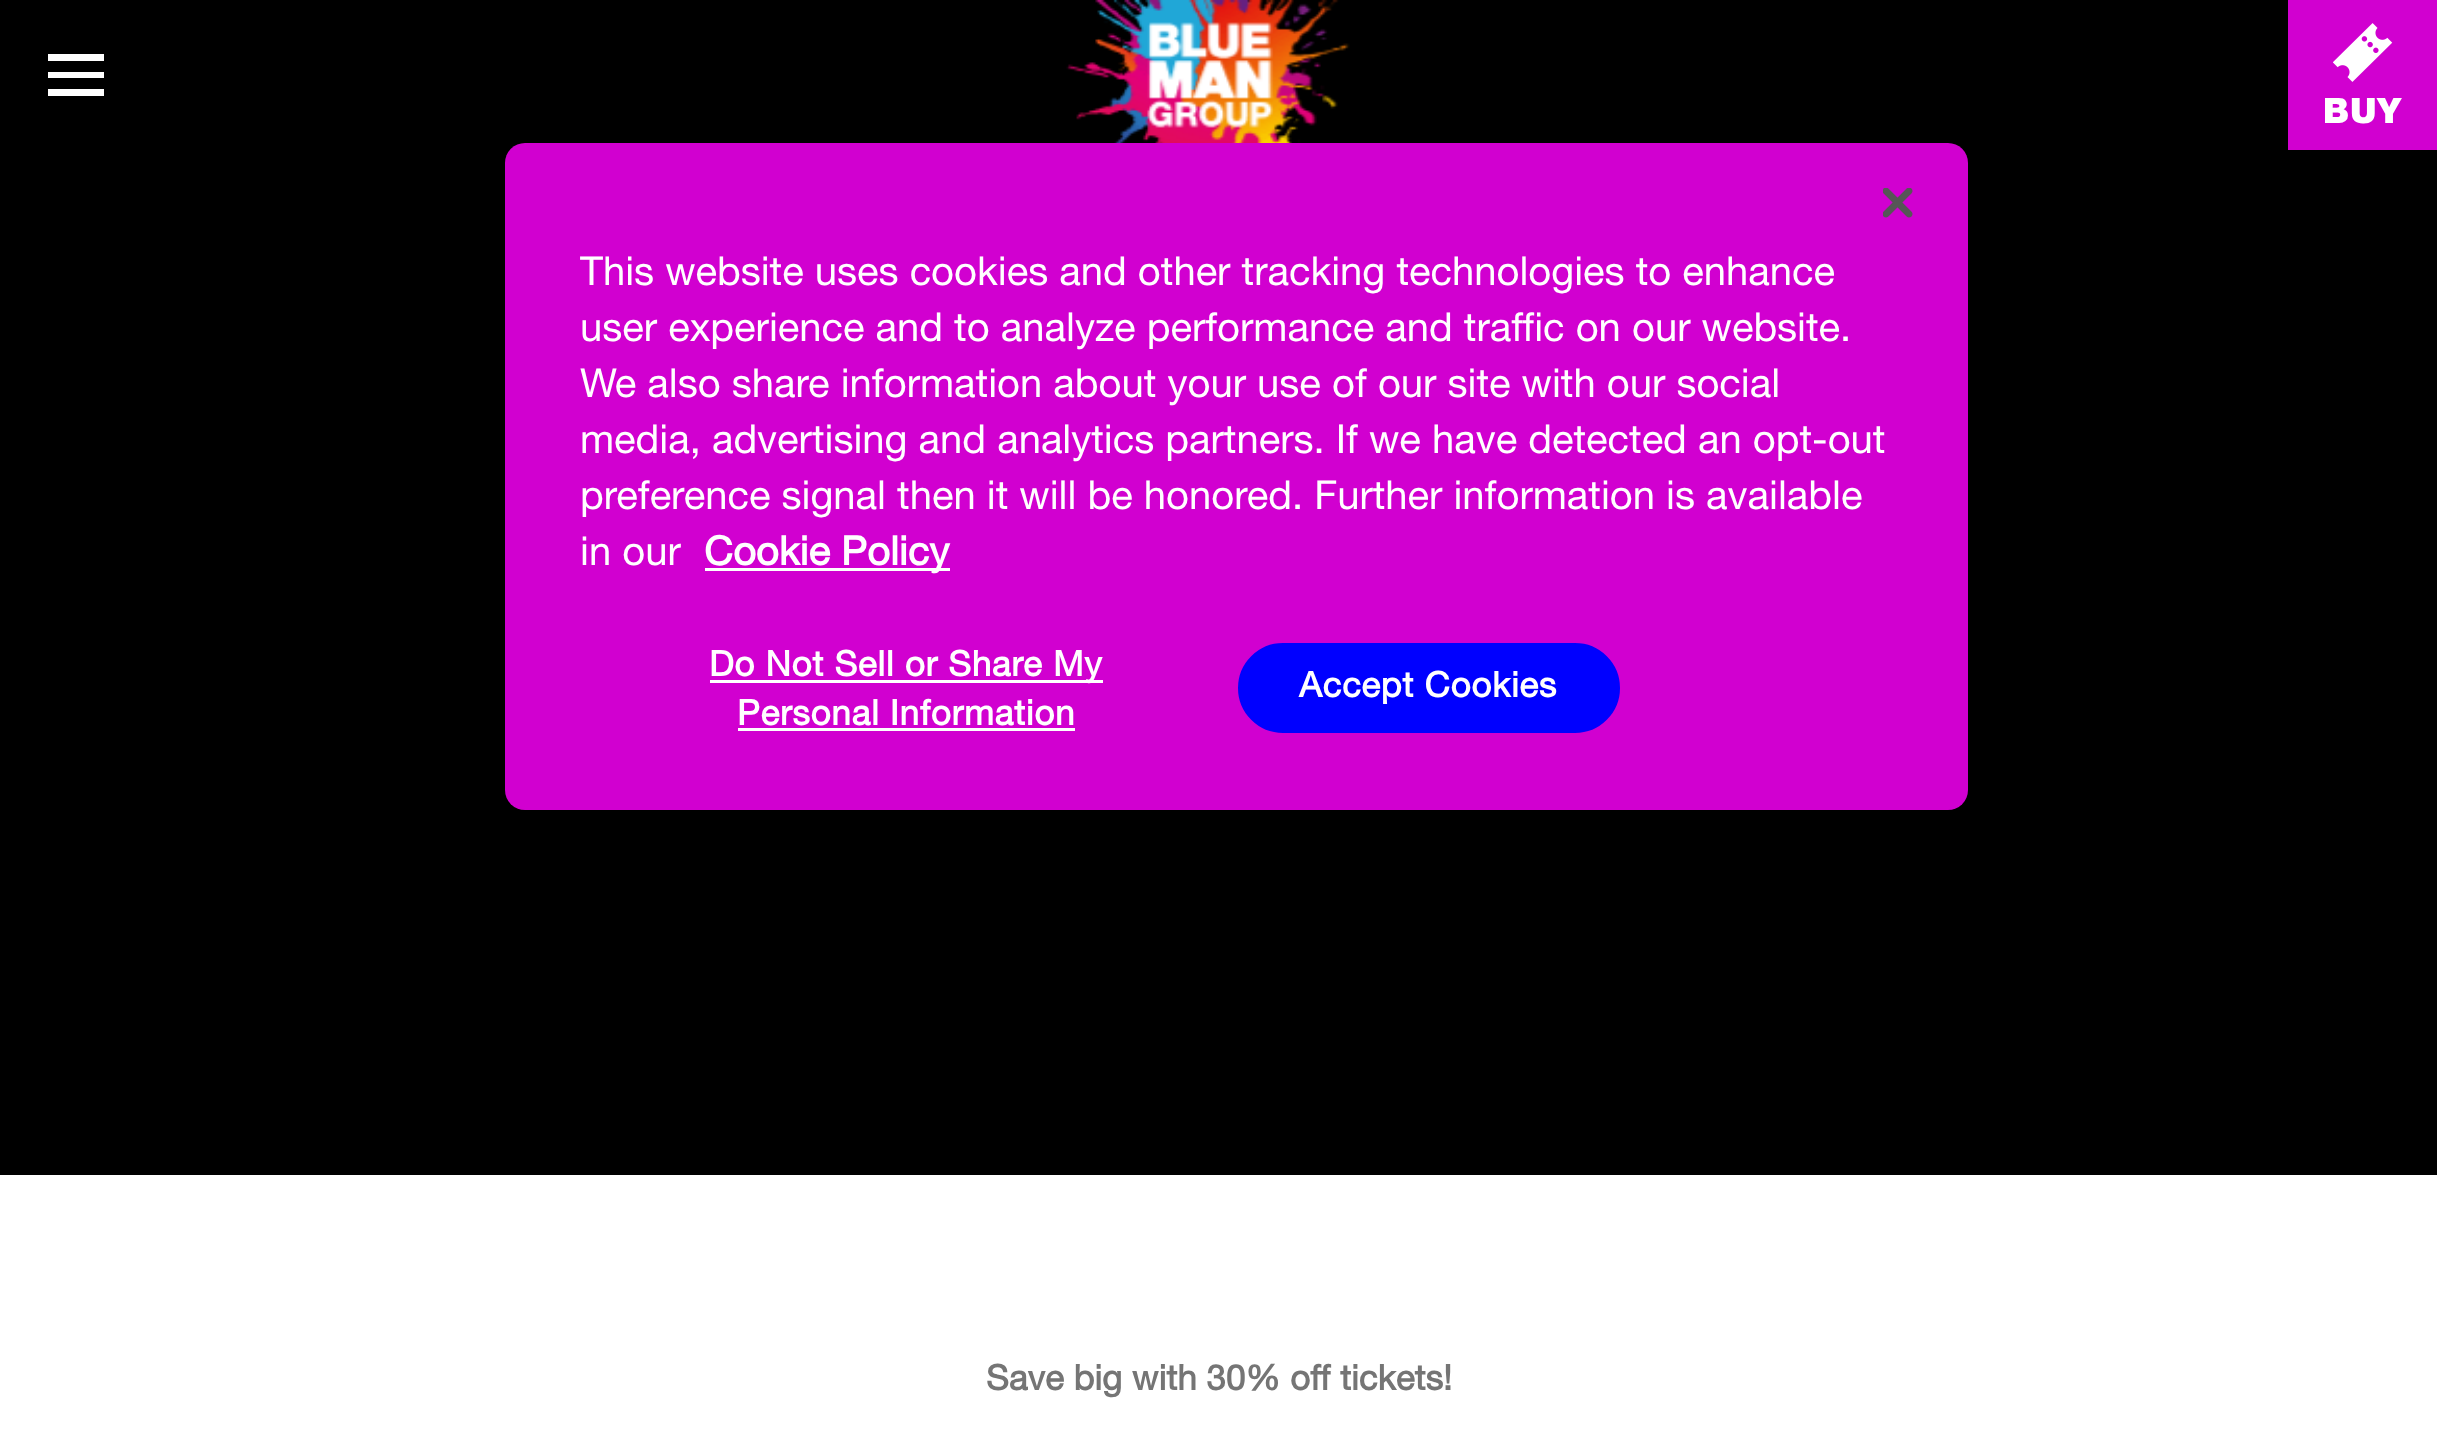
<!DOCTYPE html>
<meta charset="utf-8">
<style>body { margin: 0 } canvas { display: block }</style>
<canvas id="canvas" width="2437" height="1430"></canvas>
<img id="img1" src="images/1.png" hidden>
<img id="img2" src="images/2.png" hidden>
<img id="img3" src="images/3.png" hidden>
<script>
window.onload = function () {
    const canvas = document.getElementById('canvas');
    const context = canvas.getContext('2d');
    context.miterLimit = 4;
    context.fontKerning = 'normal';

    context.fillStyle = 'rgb(255, 255, 255)';
    context.fillRect(0, 0, 2437, 1430);
    context.fillStyle = 'rgb(0, 0, 0)';
    context.fillRect(0, 0, 2288, 150);
    context.fillStyle = 'rgb(255, 255, 255)';
    context.beginPath();
    context.moveTo(48, 72);
    context.lineTo(104, 72);
    context.lineTo(104, 78);
    context.lineTo(48, 78);
    context.closePath();
    context.moveTo(48, 96);
    context.lineTo(104, 96);
    context.lineTo(104, 89);
    context.lineTo(48, 89);
    context.closePath();
    context.moveTo(48, 54);
    context.lineTo(48, 61);
    context.lineTo(104, 61);
    context.lineTo(104, 54);
    context.closePath();
    context.fill();
    context.drawImage(document.getElementById('img1'), 1066, 0, 284, 143);
    context.fillStyle = 'rgb(209, 0, 208)';
    context.fillRect(2288, 0, 149, 150);
    context.drawImage(document.getElementById('img2'), 2333, 23, 60, 59);
    context.fillStyle = 'rgb(0, 0, 0)';
    context.fillRect(0, 150, 2437, 1025);
    context.fillStyle = 'rgb(209, 0, 208)';
    context.beginPath();
    context.roundRect(505, 143, 1463, 667, 20);
    context.fill();
    context.drawImage(document.getElementById('img3'), 1883, 188, 30, 30);
    context.fillStyle = 'rgb(255, 255, 255)';
    context.fillRect(705, 568, 245, 3);
    context.fillRect(710, 680, 393, 3);
    context.fillRect(738, 728, 337, 3);
    context.fillStyle = 'rgb(0, 0, 255)';
    context.beginPath();
    context.roundRect(1239.5, 644.5, 379, 87, 43.5);
    context.fill();
    context.strokeStyle = 'rgb(0, 0, 255)';
    context.lineWidth = 3;
    context.stroke();
    context.letterSpacing = '1px';
    context.font = '900 35px Helvetica Neue';
    context.fillStyle = 'rgb(255, 255, 255)';
    context.fillText('BUY', 2323, 123);
    context.letterSpacing = '0px';
    context.font = 'bold 35px Helvetica Neue';
    context.fillStyle = 'rgb(117, 117, 117)';
    context.fillText('Save big with 30% off tickets!', 986, 1390);
    context.font = '40px Helvetica Neue';
    context.fillStyle = 'rgb(255, 255, 255)';
    context.fillText('This website uses cookies and other tracking technologies to enhance', 580, 285);
    context.fillText('user experience and to analyze performance and traffic on our website.', 580, 341);
    context.fillText('We also share information about your use of our site with our social', 580, 397);
    context.fillText('media, advertising and analytics partners. If we have detected an opt-out', 580, 453);
    context.fillText('preference signal then it will be honored. Further information is available', 580, 509);
    context.fillText('in our', 580, 565);
    context.font = 'bold 40px Helvetica Neue';
    context.fillText('Cookie Policy', 704, 565);
    context.letterSpacing = '0.7px';
    context.font = 'bold 35px Helvetica Neue';
    context.fillText('Do Not Sell or Share My', 709, 676);
    context.fillText('Personal Information', 737, 725);
    context.fillText('Accept Cookies', 1299, 697);
};
</script>
